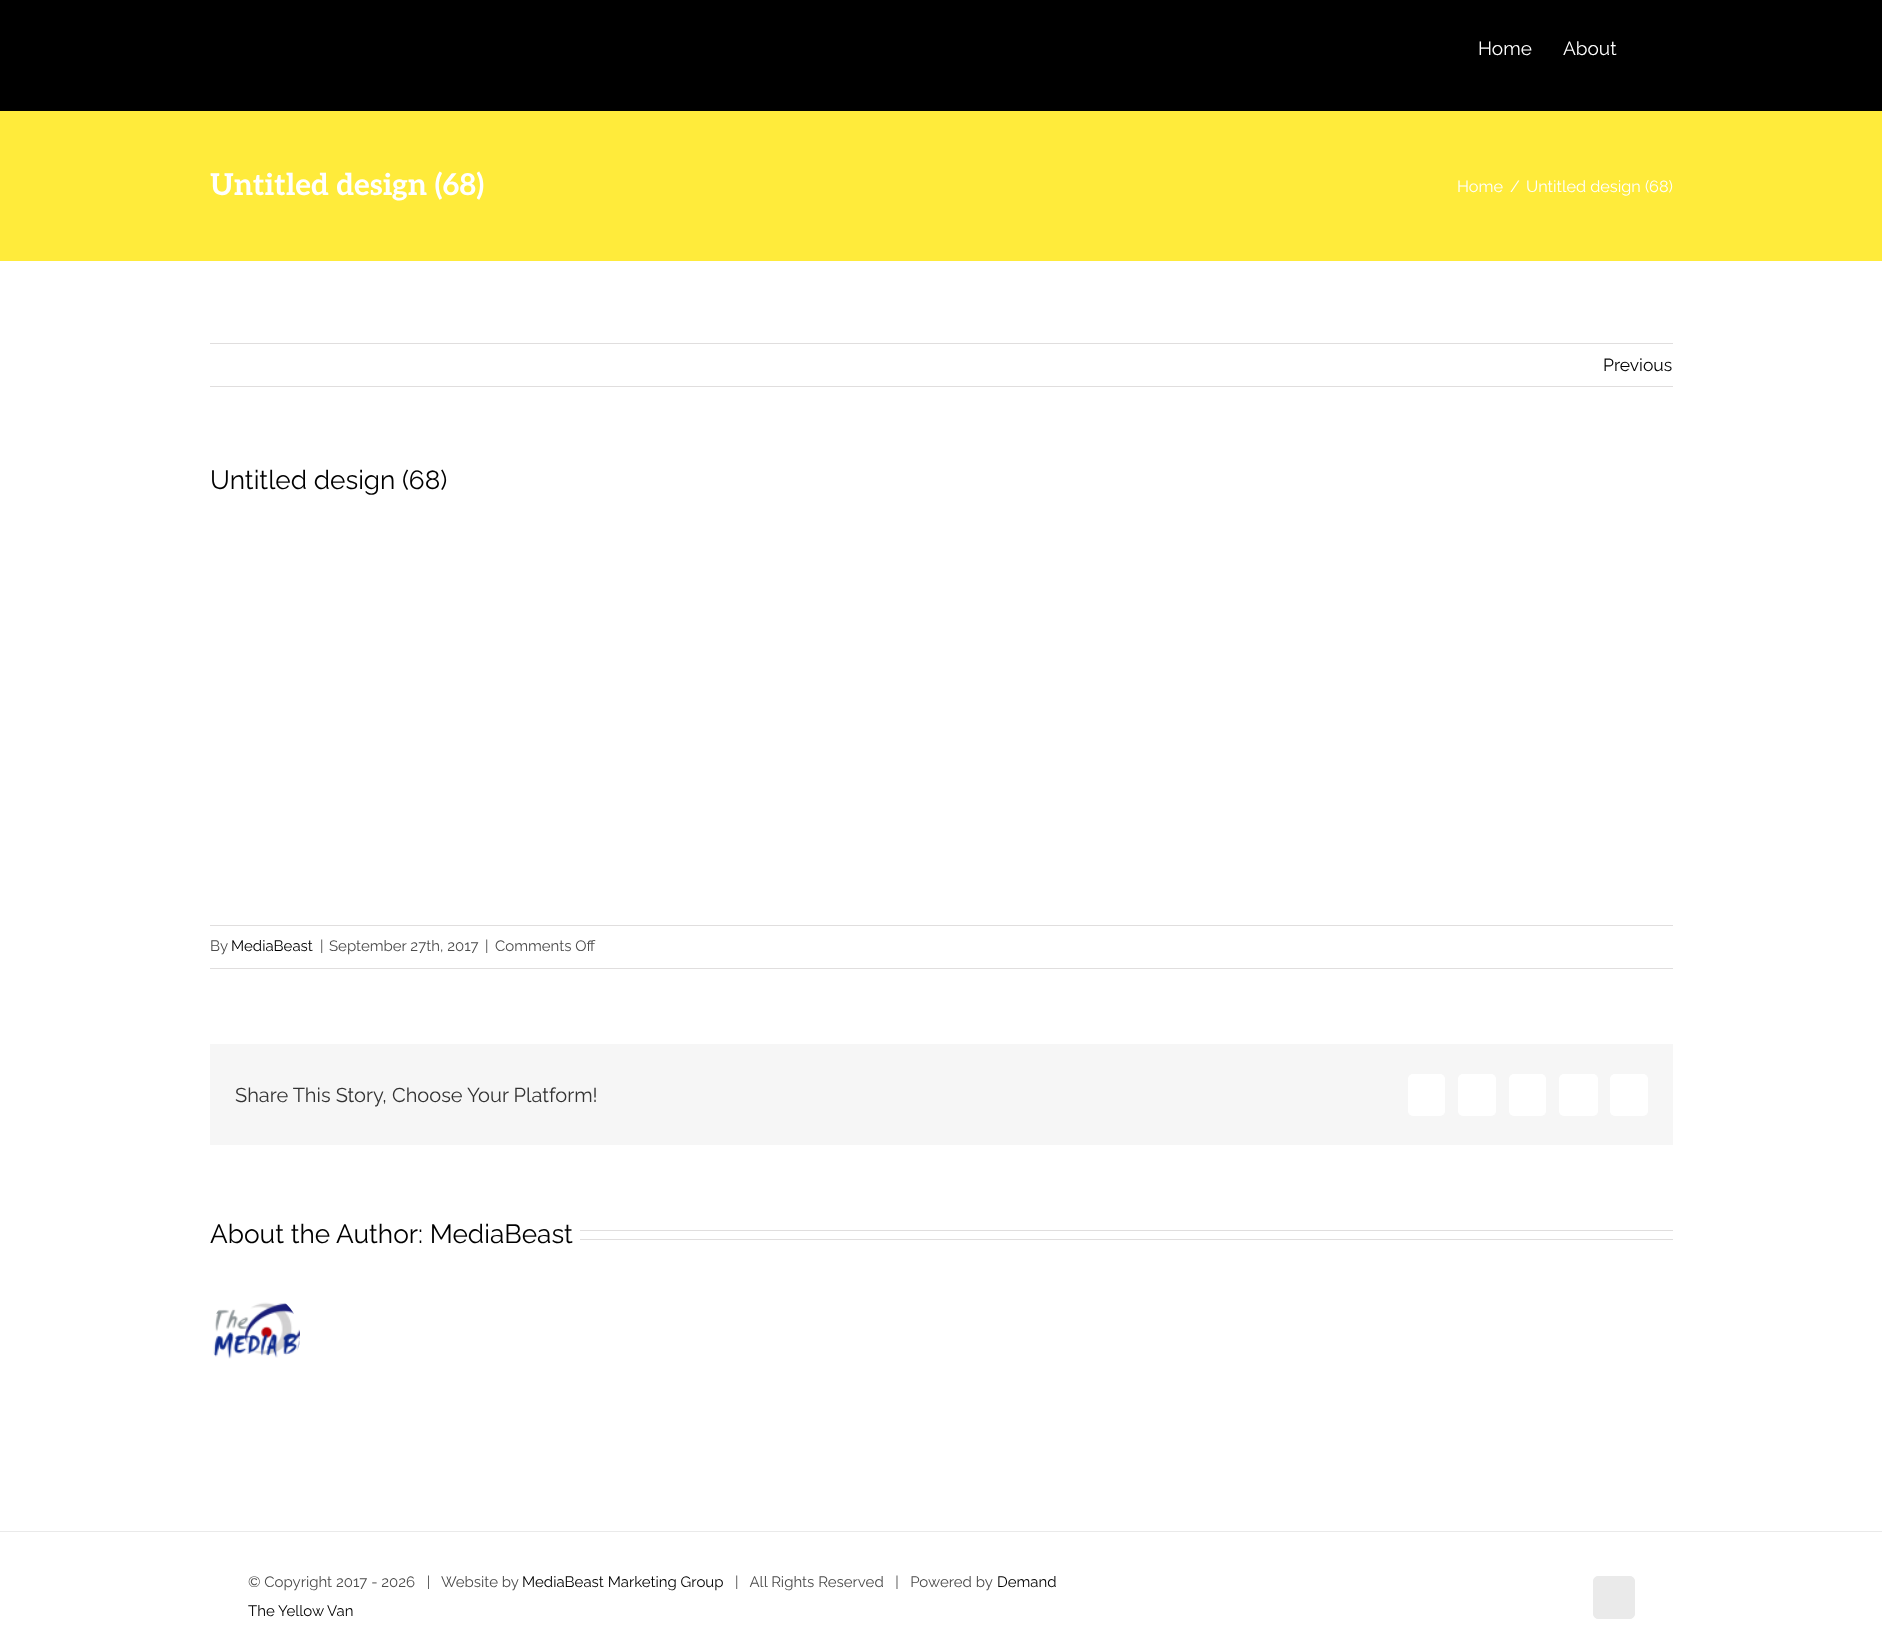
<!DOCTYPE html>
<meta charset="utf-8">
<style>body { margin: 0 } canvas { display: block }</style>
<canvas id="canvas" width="1882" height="1633"></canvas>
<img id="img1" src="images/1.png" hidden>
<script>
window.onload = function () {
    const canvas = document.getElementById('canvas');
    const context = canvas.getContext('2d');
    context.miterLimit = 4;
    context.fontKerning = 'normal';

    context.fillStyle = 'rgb(255, 255, 255)';
    context.fillRect(0, 0, 1882, 1633);
    context.fillStyle = 'rgb(0, 0, 0)';
    context.fillRect(0, 0, 1882, 111);
    context.fillStyle = 'rgb(255, 235, 59)';
    context.fillRect(0, 111, 1882, 150);
    context.fillStyle = 'rgb(224, 222, 222)';
    context.fillRect(210, 343, 1463, 1);
    context.fillRect(210, 386, 1463, 1);
    context.fillRect(210, 925, 1463, 1);
    context.fillRect(210, 968, 1463, 1);
    context.fillStyle = 'rgb(246, 246, 246)';
    context.fillRect(210, 1044, 1463, 101);
    context.fillStyle = 'rgb(255, 255, 255)';
    context.beginPath();
    context.roundRect(1408, 1074, 37, 42, 5);
    context.fill();
    context.beginPath();
    context.roundRect(1458, 1074, 38, 42, 5);
    context.fill();
    context.beginPath();
    context.roundRect(1509, 1074, 37, 42, 5);
    context.fill();
    context.beginPath();
    context.roundRect(1559, 1074, 39, 42, 5);
    context.fill();
    context.beginPath();
    context.roundRect(1610, 1074, 38, 42, 5);
    context.fill();
    context.fillStyle = 'rgb(224, 222, 222)';
    context.fillRect(580, 1230, 1093, 1);
    context.fillRect(580, 1239, 1093, 1);
    context.drawImage(document.getElementById('img1'), 213, 1302, 87, 57);
    context.fillStyle = 'rgb(234, 234, 234)';
    context.fillRect(0, 1531, 1882, 1);
    context.beginPath();
    context.roundRect(1593.5, 1576.5, 41, 42, 4.5);
    context.fill();
    context.strokeStyle = 'rgb(234, 234, 234)';
    context.stroke();
    context.font = '100 19px Raleway';
    context.fillStyle = 'rgb(255, 255, 255)';
    context.fillText('Home', 1478, 55);
    context.fillText('About', 1563, 55);
    context.font = 'bold 30px Aleo';
    context.fillText('Untitled design (68)', 210, 195);
    context.font = '100 16.25px Raleway';
    context.fillText('Home', 1457, 192);
    context.fillText('/', 1510, 192);
    context.fillText('Untitled design (68)', 1526, 192);
    context.font = '100 17.5px Raleway';
    context.fillStyle = 'rgb(0, 0, 0)';
    context.fillText('Previous', 1603, 371);
    context.font = '100 26.25px Raleway';
    context.fillText('Untitled design (68)', 210, 489);
    context.font = '100 15px Raleway';
    context.fillStyle = 'rgb(76, 76, 76)';
    context.fillText('By', 210, 951);
    context.fillStyle = 'rgb(0, 0, 0)';
    context.fillText('MediaBeast', 231, 951);
    context.fillStyle = 'rgb(76, 76, 76)';
    context.fillText('|', 320, 951);
    context.fillText('September 27th, 2017', 329, 951);
    context.fillText('|', 485, 951);
    context.fillText('Comments Off', 495, 951);
    context.font = '100 20px Raleway';
    context.fillStyle = 'rgb(51, 51, 51)';
    context.fillText('Share This Story, Choose Your Platform!', 235, 1102);
    context.font = '100 26.25px Raleway';
    context.fillStyle = 'rgb(0, 0, 0)';
    context.fillText('About the Author: MediaBeast', 210, 1243);
    context.font = '100 15px Raleway';
    context.fillStyle = 'rgb(76, 76, 76)';
    context.fillText('© Copyright 2017 - 2026   |   Website by', 248, 1587);
    context.fillStyle = 'rgb(0, 0, 0)';
    context.fillText('MediaBeast Marketing Group', 522, 1587);
    context.fillStyle = 'rgb(76, 76, 76)';
    context.fillText('|   All Rights Reserved   |   Powered by', 735, 1587);
    context.fillStyle = 'rgb(0, 0, 0)';
    context.fillText('Demand', 997, 1587);
    context.fillText('The Yellow Van', 248, 1616);
};
</script>
